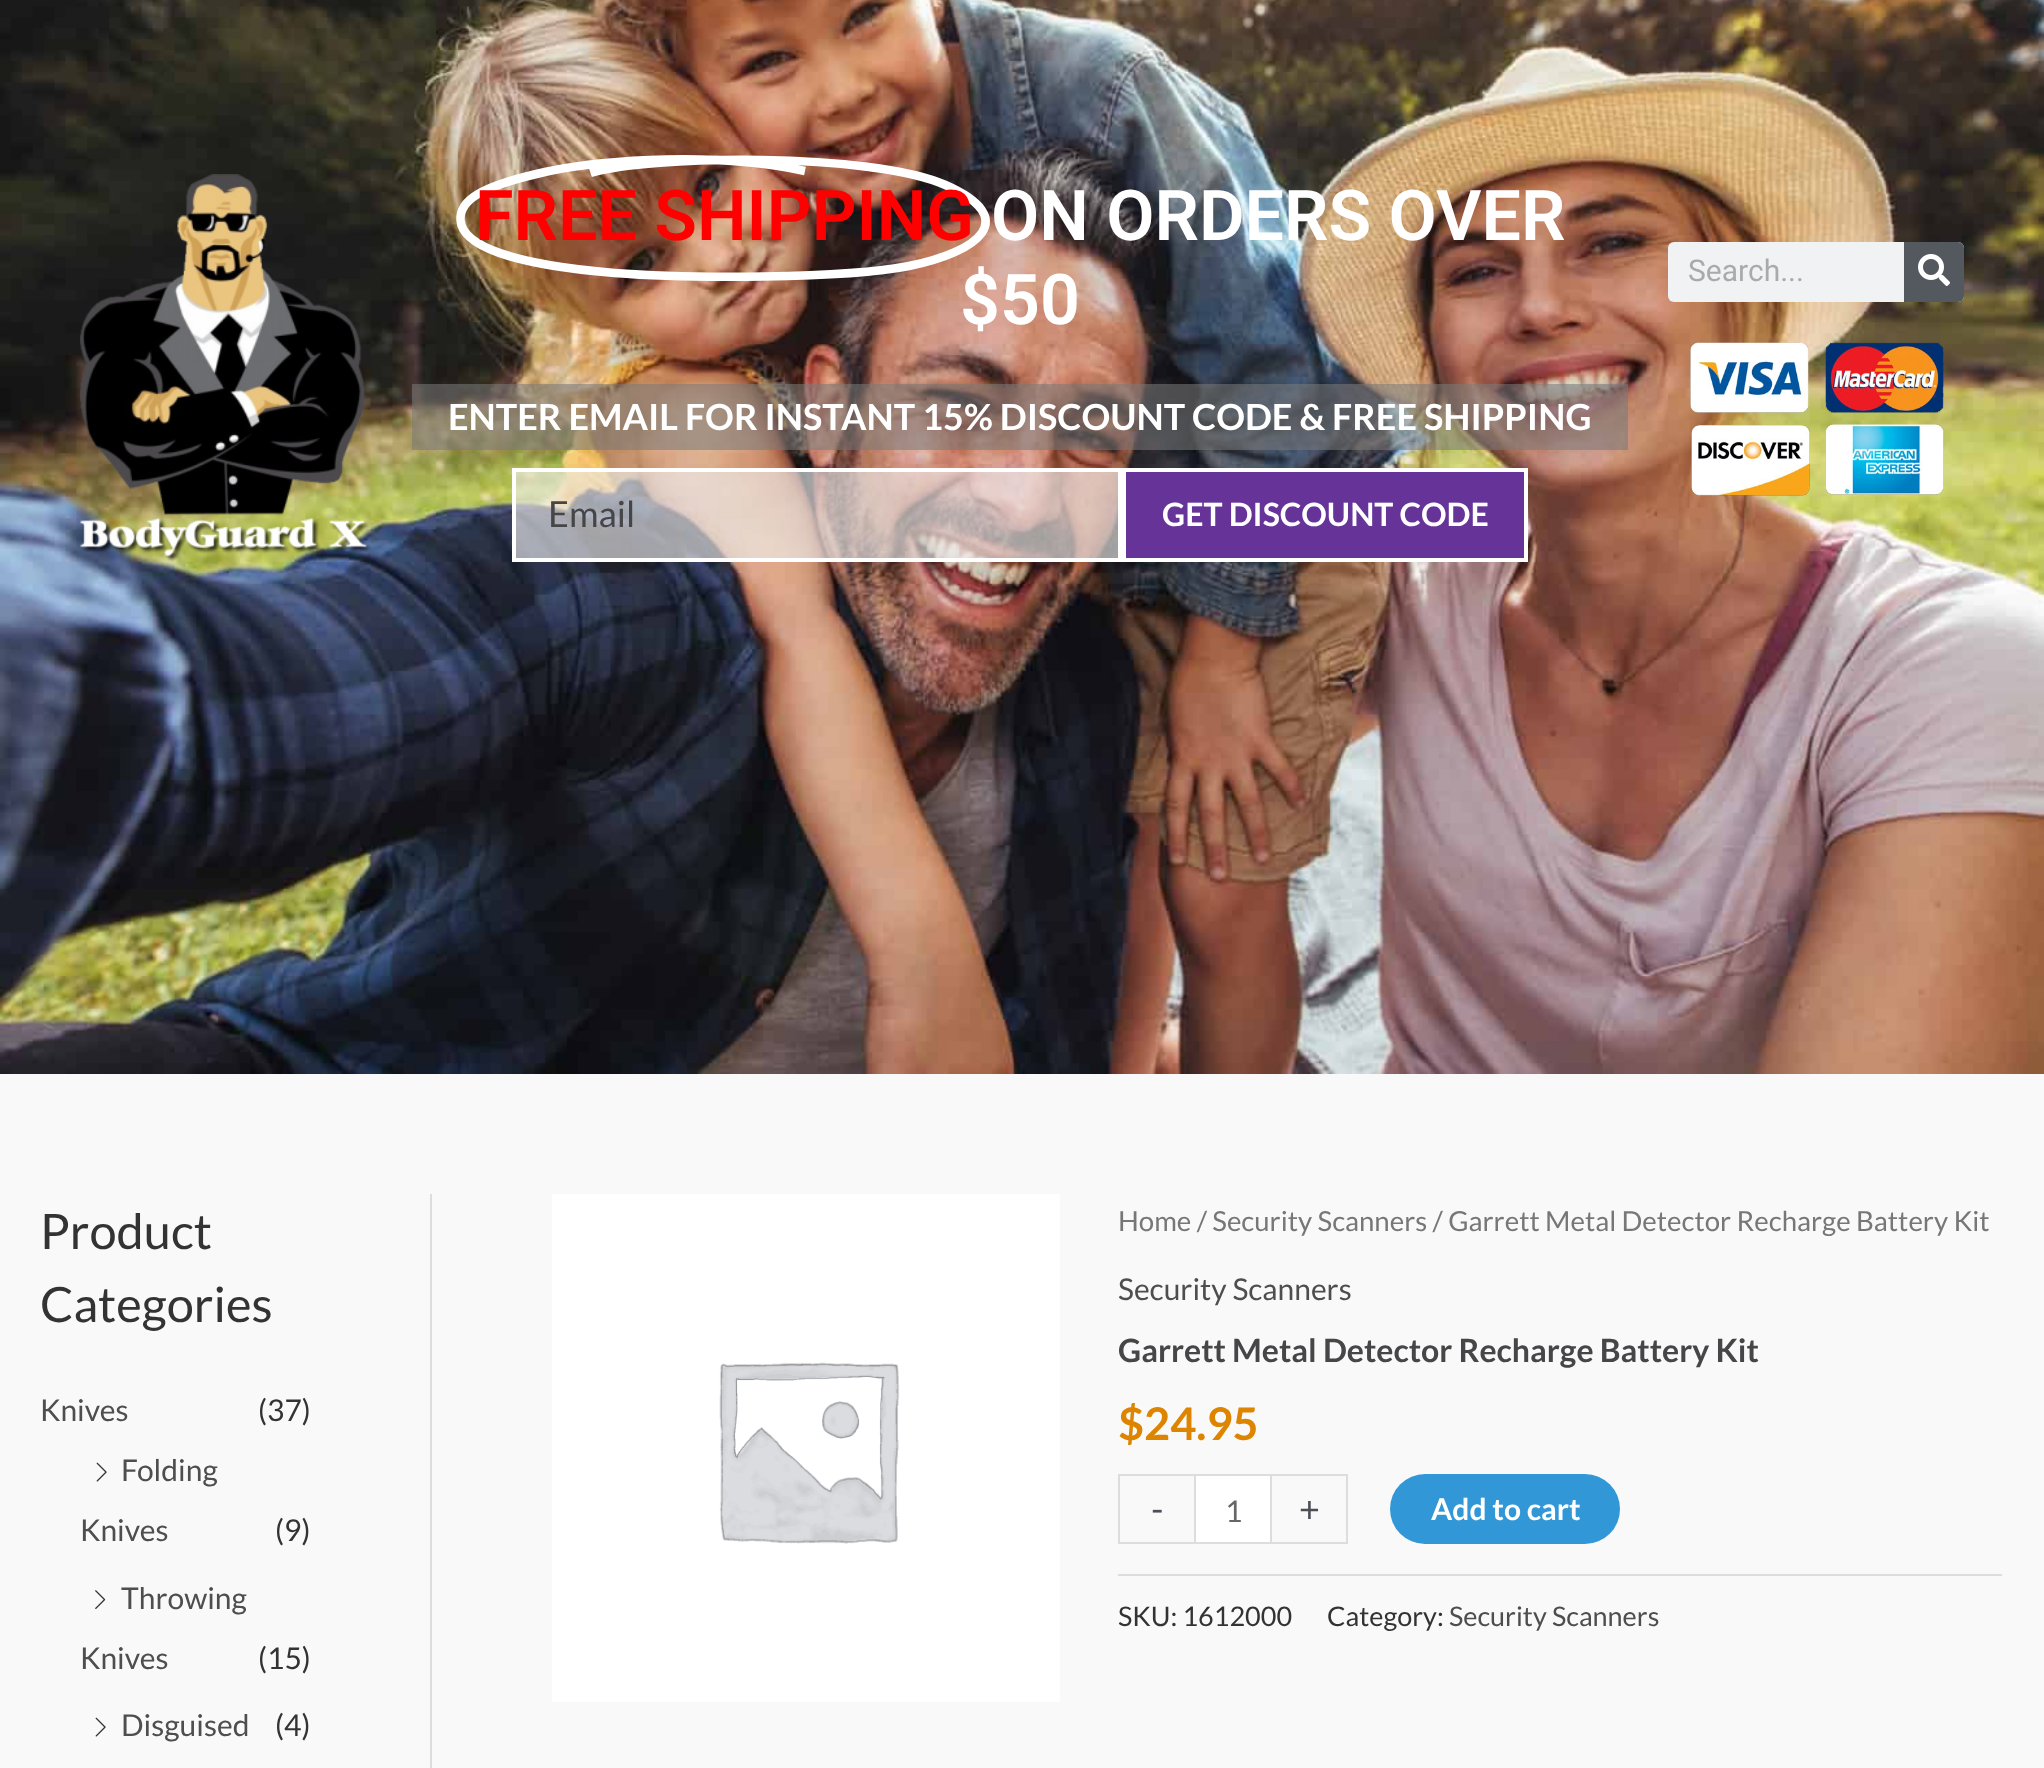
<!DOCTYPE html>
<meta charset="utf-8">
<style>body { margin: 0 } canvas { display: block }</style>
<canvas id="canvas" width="2044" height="1768"></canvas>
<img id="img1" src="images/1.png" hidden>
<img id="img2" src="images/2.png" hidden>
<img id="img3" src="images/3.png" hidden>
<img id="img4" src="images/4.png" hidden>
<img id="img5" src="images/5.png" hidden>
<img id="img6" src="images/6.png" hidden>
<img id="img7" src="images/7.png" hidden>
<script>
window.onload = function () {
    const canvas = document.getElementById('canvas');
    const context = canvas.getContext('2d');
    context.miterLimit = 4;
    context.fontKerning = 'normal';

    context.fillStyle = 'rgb(249, 249, 249)';
    context.fillRect(0, 0, 2044, 1768);
    context.drawImage(document.getElementById('img1'), 0, 0, 2044, 1074);
    context.drawImage(document.getElementById('img2'), 80, 174, 292, 388);
    context.beginPath();
    context.moveTo(805, 171);
    context.bezierCurveTo(701, 149, 582.5, 163, 538.5, 173.5);
    context.bezierCurveTo(478.5, 187.5, 459.5, 201, 460.5, 220);
    context.bezierCurveTo(462, 247, 517, 265, 614.5, 273);
    context.bezierCurveTo(685.5, 278.5, 843, 279, 909, 266);
    context.bezierCurveTo(978.5, 252, 1021.5, 218.5, 945.5, 185);
    context.bezierCurveTo(871.5, 152, 648, 155, 590.5, 173);
    context.strokeStyle = 'rgb(255, 255, 255)';
    context.lineWidth = 8.5;
    context.stroke();
    context.fillStyle = 'rgba(122, 122, 122, 0.56)';
    context.fillRect(412, 384, 1216, 66);
    context.fillStyle = 'rgba(239, 239, 239, 0.63)';
    context.beginPath();
    context.rect(514, 470, 606, 90);
    context.fill();
    context.lineWidth = 4;
    context.stroke();
    context.fillStyle = 'rgb(102, 51, 153)';
    context.beginPath();
    context.rect(1124, 470, 402, 90);
    context.fill();
    context.stroke();
    context.fillStyle = 'rgb(241, 242, 243)';
    context.beginPath();
    context.roundRect(1668, 242, 296, 60, 6);
    context.fill();
    context.fillStyle = 'rgb(84, 89, 95)';
    context.beginPath();
    context.roundRect(1904, 242, 60, 60, [0, 6, 6, 0]);
    context.fill();
    context.drawImage(document.getElementById('img3'), 1918, 254, 32, 32);
    context.drawImage(document.getElementById('img4'), 1690, 342, 254, 154);
    context.fillStyle = 'rgb(221, 221, 221)';
    context.fillRect(430, 1194, 2, 574);
    context.drawImage(document.getElementById('img5'), 96, 1462, 11, 20);
    context.drawImage(document.getElementById('img6'), 95, 1590, 11, 19);
    context.drawImage(document.getElementById('img5'), 95, 1717, 11, 20);
    context.drawImage(document.getElementById('img7'), 552, 1194, 508, 508);
    context.fillRect(1118, 1474, 76, 2);
    context.fillRect(1118, 1542, 76, 2);
    context.fillRect(1118, 1474, 2, 70);
    context.fillStyle = 'rgb(255, 255, 255)';
    context.beginPath();
    context.rect(1195, 1475, 76, 68);
    context.fill();
    context.strokeStyle = 'rgb(221, 221, 221)';
    context.lineWidth = 2;
    context.stroke();
    context.fillStyle = 'rgb(221, 221, 221)';
    context.fillRect(1272, 1474, 76, 2);
    context.fillRect(1346, 1474, 2, 70);
    context.fillRect(1272, 1542, 76, 2);
    context.fillStyle = 'rgb(49, 151, 214)';
    context.beginPath();
    context.roundRect(1390, 1474, 230, 70, 35);
    context.fill();
    context.fillStyle = 'rgb(221, 221, 221)';
    context.fillRect(1118, 1574, 884, 2);
    context.font = '600 70px Roboto';
    context.fillStyle = 'rgb(255, 0, 0)';
    context.fillText('FREE SHIPPING', 475, 240);
    context.fillStyle = 'rgb(255, 255, 255)';
    context.fillText('ON ORDERS OVER', 991, 240);
    context.fillText('$50', 960, 324);
    context.font = 'bold 36px Lato';
    context.fillText('ENTER EMAIL FOR INSTANT 15% DISCOUNT CODE & FREE SHIPPING', 448, 430);
    context.font = '36px Lato';
    context.fillStyle = 'rgb(70, 70, 72)';
    context.fillText('Email', 548, 527);
    context.font = 'bold 32px Lato';
    context.fillStyle = 'rgb(255, 255, 255)';
    context.fillText('GET DISCOUNT CODE', 1162, 526);
    context.font = '30px Roboto';
    context.fillStyle = 'rgb(170, 170, 170)';
    context.fillText('Search...', 1688, 281);
    context.font = '48.75px Lato';
    context.fillStyle = 'rgb(51, 51, 51)';
    context.fillText('Product', 40, 1249);
    context.fillText('Categories', 40, 1322);
    context.font = '30px Lato';
    context.fillStyle = 'rgb(78, 78, 78)';
    context.fillText('Knives', 40, 1421);
    context.fillStyle = 'rgb(51, 51, 51)';
    context.fillText('(37)', 258, 1421);
    context.fillStyle = 'rgb(78, 78, 78)';
    context.fillText('Folding', 121, 1481);
    context.fillText('Knives', 80, 1541);
    context.fillStyle = 'rgb(51, 51, 51)';
    context.fillText('(9)', 275, 1541);
    context.fillStyle = 'rgb(78, 78, 78)';
    context.fillText('Throwing', 121, 1609);
    context.fillText('Knives', 80, 1669);
    context.fillStyle = 'rgb(51, 51, 51)';
    context.fillText('(15)', 258, 1669);
    context.fillStyle = 'rgb(78, 78, 78)';
    context.fillText('Disguised', 121, 1736);
    context.fillStyle = 'rgb(51, 51, 51)';
    context.fillText('(4)', 275, 1736);
    context.font = '27.6px Lato';
    context.fillStyle = 'rgb(119, 119, 119)';
    context.fillText('Home / Security Scanners / Garrett Metal Detector Recharge Battery Kit', 1118, 1231);
    context.font = '30px Lato';
    context.fillStyle = 'rgb(78, 78, 78)';
    context.fillText('Security Scanners', 1118, 1300);
    context.font = 'bold 32px Lato';
    context.fillStyle = 'rgb(70, 70, 72)';
    context.fillText('Garrett Metal Detector Recharge Battery Kit', 1118, 1362);
    context.font = 'bold 45px Lato';
    context.fillStyle = 'rgb(221, 133, 0)';
    context.fillText('$24.95', 1118, 1440);
    context.font = '36px Lato';
    context.fillStyle = 'rgb(75, 79, 88)';
    context.fillText('-', 1151, 1522);
    context.font = '30px Lato';
    context.fillStyle = 'rgb(102, 102, 102)';
    context.fillText('1', 1225, 1522);
    context.font = '36px Lato';
    context.fillStyle = 'rgb(75, 79, 88)';
    context.fillText('+', 1299, 1522);
    context.font = 'bold 30px Lato';
    context.fillStyle = 'rgb(255, 255, 255)';
    context.fillText('Add to cart', 1431, 1520);
    context.font = '27px Lato';
    context.fillStyle = 'rgb(51, 51, 51)';
    context.fillText('SKU: 1612000', 1118, 1626);
    context.fillText('Category:', 1327, 1626);
    context.fillStyle = 'rgb(78, 78, 78)';
    context.fillText('Security Scanners', 1449, 1626);
};
</script>
